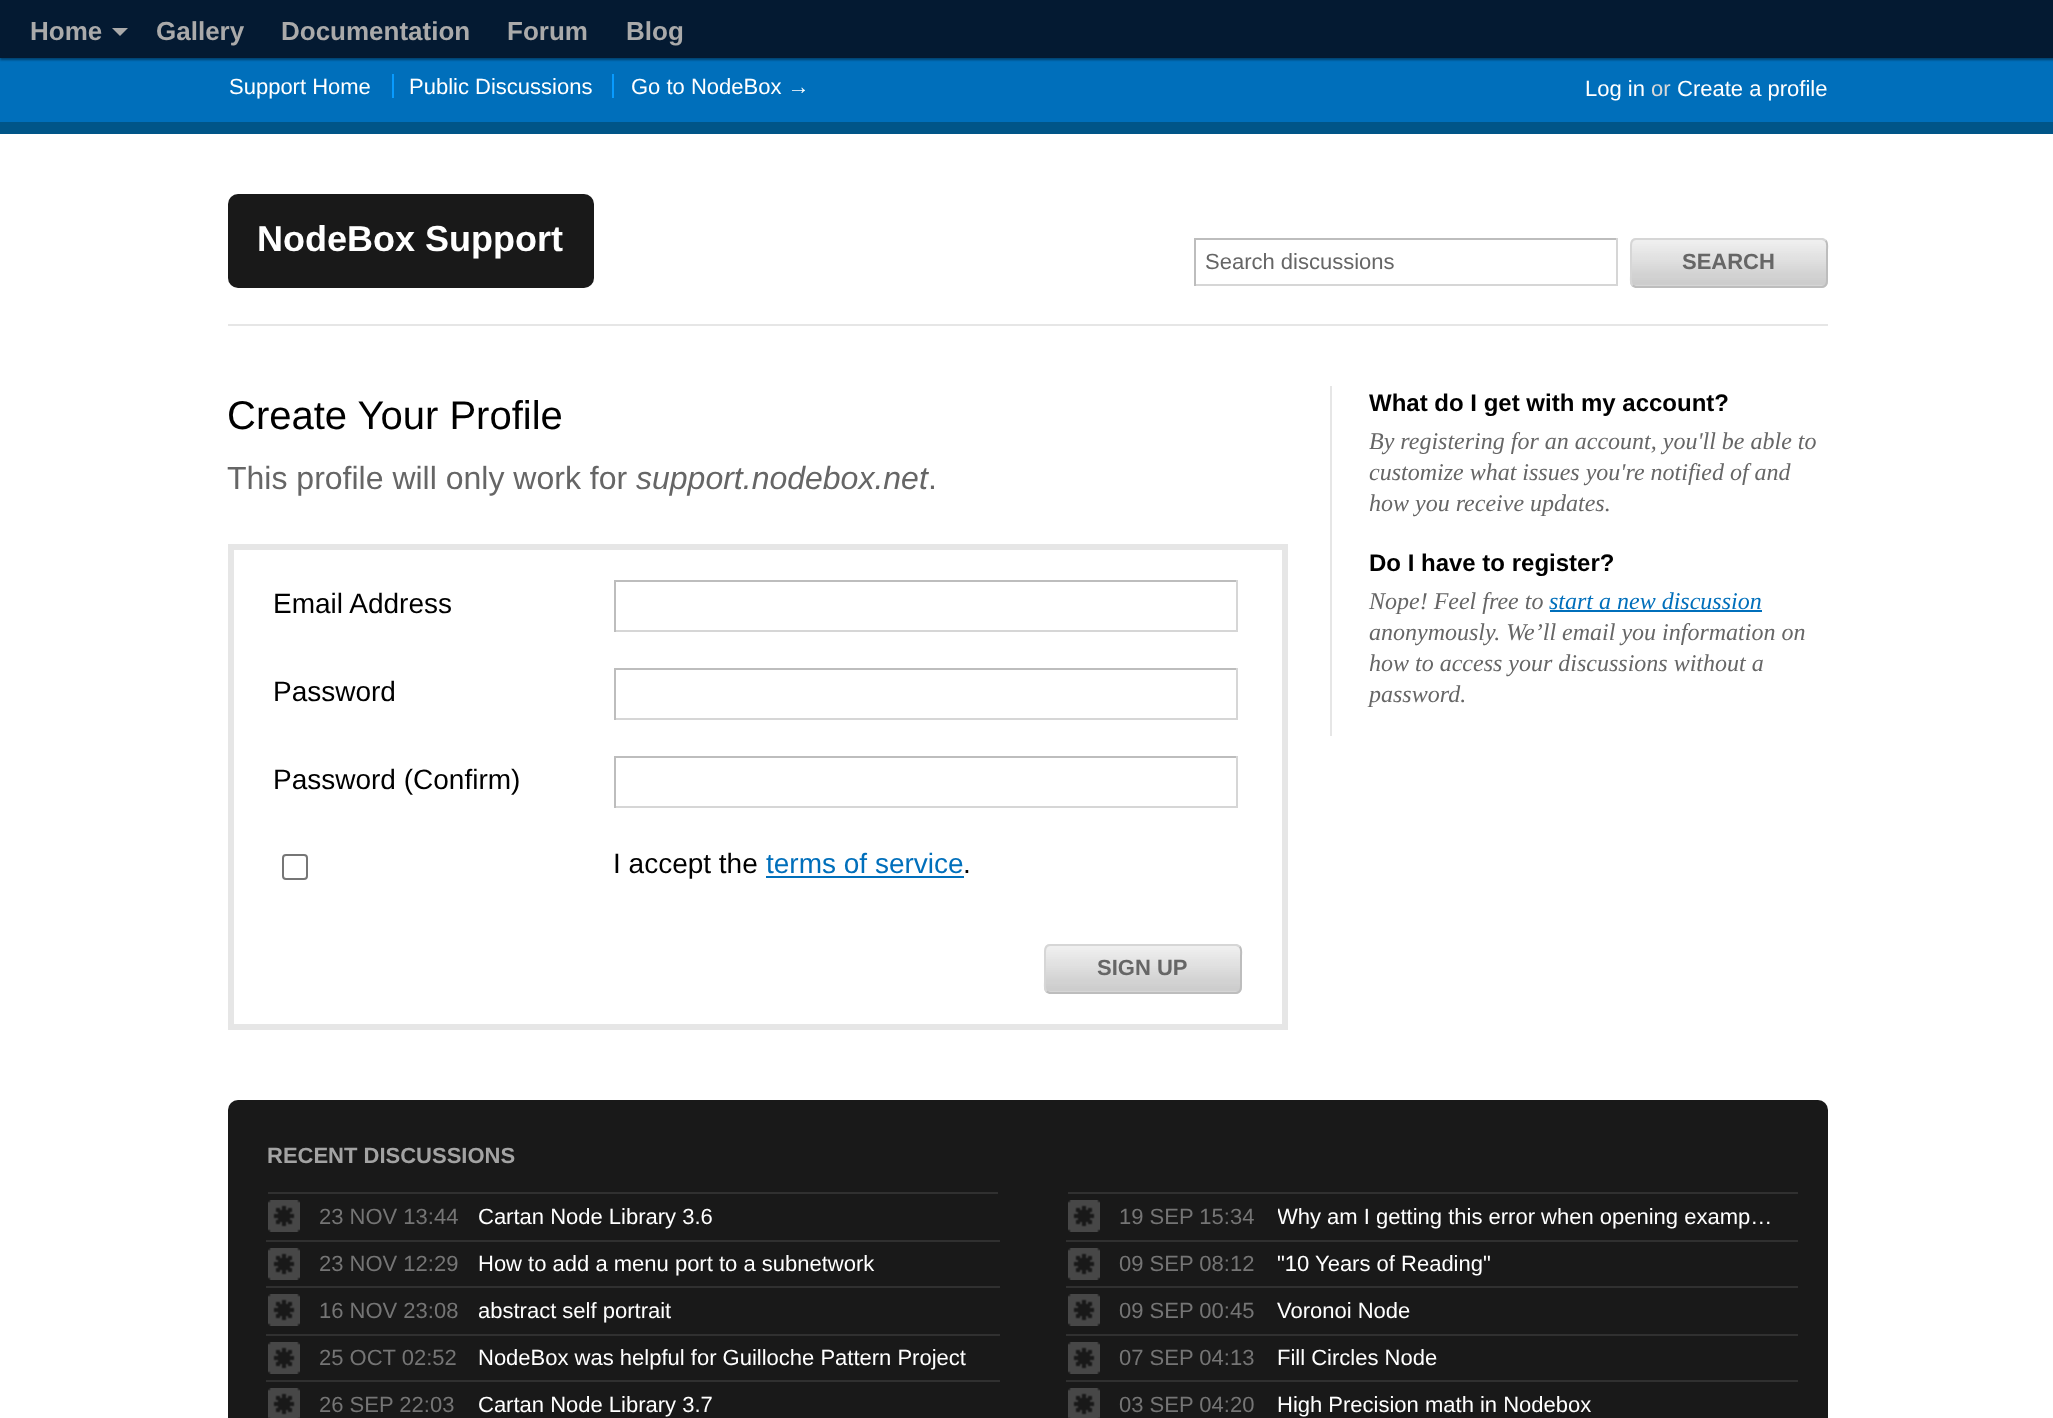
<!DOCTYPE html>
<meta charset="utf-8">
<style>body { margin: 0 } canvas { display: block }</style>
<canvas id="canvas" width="2053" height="1418"></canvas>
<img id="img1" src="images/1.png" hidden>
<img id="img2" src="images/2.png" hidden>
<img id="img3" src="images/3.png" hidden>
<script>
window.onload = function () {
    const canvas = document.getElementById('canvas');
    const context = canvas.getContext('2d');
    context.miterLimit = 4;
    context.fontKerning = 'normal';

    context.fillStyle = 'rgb(255, 255, 255)';
    context.fillRect(0, 0, 2053, 1418);
    context.fillStyle = 'rgb(0, 111, 187)';
    context.fillRect(0, 58, 2053, 64);
    context.fillStyle = 'rgba(0, 0, 0, 0.4)';
    context.filter = 'blur(1px)';
    context.beginPath();
    context.rect(0, 2, 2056, 58);
    context.fill();
    context.filter = 'none';
    context.fillStyle = 'rgb(4, 26, 50)';
    context.fillRect(0, 0, 2053, 58);
    context.fillStyle = 'rgb(170, 170, 170)';
    context.beginPath();
    context.moveTo(112, 28);
    context.lineTo(128, 28);
    context.lineTo(120, 36);
    context.closePath();
    context.fill();
    context.strokeStyle = 'rgb(230, 230, 230)';
    context.lineWidth = 6;
    context.strokeRect(231, 547, 1054, 480);
    context.fillStyle = 'rgb(189, 189, 189)';
    context.fillRect(614, 580, 624, 2);
    context.fillStyle = 'rgb(214, 214, 214)';
    context.fillRect(1236, 580, 2, 52);
    context.fillRect(614, 630, 624, 2);
    context.fillStyle = 'rgb(189, 189, 189)';
    context.fillRect(614, 580, 2, 52);
    context.fillRect(614, 668, 624, 2);
    context.fillStyle = 'rgb(214, 214, 214)';
    context.fillRect(1236, 668, 2, 52);
    context.fillRect(614, 718, 624, 2);
    context.fillStyle = 'rgb(189, 189, 189)';
    context.fillRect(614, 668, 2, 52);
    context.fillRect(614, 756, 624, 2);
    context.fillStyle = 'rgb(214, 214, 214)';
    context.fillRect(1236, 756, 2, 52);
    context.fillRect(614, 806, 624, 2);
    context.fillStyle = 'rgb(189, 189, 189)';
    context.fillRect(614, 756, 2, 52);
    context.beginPath();
    context.roundRect(283, 855, 24, 24, 3);
    context.strokeStyle = 'rgb(118, 118, 118)';
    context.lineWidth = 2;
    context.stroke();
    context.fillStyle = 'rgb(0, 111, 187)';
    context.fillRect(766, 876, 198, 2);
    context.fillStyle = 'rgb(240, 240, 240)';
    context.beginPath();
    context.roundRect(1044, 944, 198, 50, 6);
    context.fill();
    context.drawImage(document.getElementById('img1'), 1044, 944, 198, 49);
    context.beginPath();
    context.moveTo(1239.5, 946.5);
    context.bezierCurveTo(1242, 949, 1241, 953.5, 1241, 956.5);
    context.lineTo(1241, 981.5);
    context.bezierCurveTo(1241, 985.5, 1242, 993, 1236, 993);
    context.lineTo(1049.5, 993);
    context.lineTo(1046.5, 991.5);
    context.strokeStyle = 'rgb(189, 189, 189)';
    context.stroke();
    context.beginPath();
    context.moveTo(1046.5, 991.5);
    context.bezierCurveTo(1044, 989, 1045, 984.5, 1045, 981.5);
    context.lineTo(1045, 956.5);
    context.bezierCurveTo(1045, 952.5, 1044, 945, 1050, 945);
    context.lineTo(1236.5, 945);
    context.lineTo(1239.5, 946.5);
    context.strokeStyle = 'rgb(214, 214, 214)';
    context.stroke();
    context.fillStyle = 'rgb(230, 230, 230)';
    context.fillRect(1330, 386, 2, 350);
    context.fillStyle = 'rgb(0, 111, 187)';
    context.fillRect(1550, 610, 212, 2);
    context.fillStyle = 'rgb(25, 25, 25)';
    context.beginPath();
    context.roundRect(228, 1100, 1600, 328, 10);
    context.fill();
    context.fillStyle = 'rgb(48, 48, 48)';
    context.fillRect(268, 1192, 730, 2);
    context.drawImage(document.getElementById('img2'), 268, 1200, 32, 32);
    context.fillRect(266, 1240, 734, 2);
    context.drawImage(document.getElementById('img2'), 268, 1248, 32, 32);
    context.fillRect(266, 1286, 734, 2);
    context.drawImage(document.getElementById('img2'), 268, 1294, 32, 32);
    context.fillRect(266, 1334, 734, 2);
    context.drawImage(document.getElementById('img2'), 268, 1342, 32, 32);
    context.fillRect(266, 1380, 734, 2);
    context.drawImage(document.getElementById('img3'), 268, 1388, 32, 30);
    context.fillRect(1068, 1192, 730, 2);
    context.drawImage(document.getElementById('img2'), 1068, 1200, 32, 32);
    context.fillRect(1066, 1240, 732, 2);
    context.drawImage(document.getElementById('img2'), 1068, 1248, 32, 32);
    context.fillRect(1066, 1286, 732, 2);
    context.drawImage(document.getElementById('img2'), 1068, 1294, 32, 32);
    context.fillRect(1066, 1334, 732, 2);
    context.drawImage(document.getElementById('img2'), 1068, 1342, 32, 32);
    context.fillRect(1066, 1380, 732, 2);
    context.drawImage(document.getElementById('img3'), 1068, 1388, 32, 30);
    context.fillStyle = 'rgb(230, 230, 230)';
    context.fillRect(228, 324, 1600, 2);
    context.fillStyle = 'rgb(25, 25, 25)';
    context.beginPath();
    context.roundRect(228, 194, 366, 94, 10);
    context.fill();
    context.fillStyle = 'rgb(189, 189, 189)';
    context.fillRect(1194, 238, 424, 2);
    context.fillStyle = 'rgb(214, 214, 214)';
    context.fillRect(1616, 238, 2, 48);
    context.fillRect(1194, 284, 424, 2);
    context.fillStyle = 'rgb(189, 189, 189)';
    context.fillRect(1194, 238, 2, 48);
    context.fillStyle = 'rgb(240, 240, 240)';
    context.beginPath();
    context.roundRect(1630, 238, 198, 50, 6);
    context.fill();
    context.drawImage(document.getElementById('img1'), 1630, 238, 198, 49);
    context.beginPath();
    context.moveTo(1825.5, 240.5);
    context.bezierCurveTo(1828, 243, 1827, 247.5, 1827, 250.5);
    context.lineTo(1827, 275.5);
    context.bezierCurveTo(1827, 279.5, 1828, 287, 1822, 287);
    context.lineTo(1635.5, 287);
    context.lineTo(1632.5, 285.5);
    context.strokeStyle = 'rgb(189, 189, 189)';
    context.stroke();
    context.beginPath();
    context.moveTo(1632.5, 285.5);
    context.bezierCurveTo(1630, 283, 1631, 278.5, 1631, 275.5);
    context.lineTo(1631, 250.5);
    context.bezierCurveTo(1631, 246.5, 1630, 239, 1636, 239);
    context.lineTo(1822.5, 239);
    context.lineTo(1825.5, 240.5);
    context.strokeStyle = 'rgb(214, 214, 214)';
    context.stroke();
    context.fillStyle = 'rgb(0, 85, 136)';
    context.fillRect(0, 122, 2053, 12);
    context.fillStyle = 'rgb(8, 155, 255)';
    context.fillRect(392, 74, 2, 24);
    context.fillRect(612, 74, 2, 24);
    context.font = 'bold 26px Liberation Sans';
    context.fillStyle = 'rgb(170, 170, 170)';
    context.fillText('Home', 30, 40);
    context.fillText('Gallery', 156, 40);
    context.fillText('Documentation', 281, 40);
    context.fillText('Forum', 507, 40);
    context.fillText('Blog', 626, 40);
    context.font = '40px Liberation Sans';
    context.fillStyle = 'rgb(0, 0, 0)';
    context.fillText('Create Your Profile', 227, 429);
    context.font = '32px Liberation Sans';
    context.fillStyle = 'rgb(102, 102, 102)';
    context.fillText('This profile will only work for', 227, 489);
    context.font = 'italic 32px Liberation Sans';
    context.fillText('support.nodebox.net', 636, 489);
    context.font = '32px Liberation Sans';
    context.fillText('.', 928, 489);
    context.font = '28px Liberation Sans';
    context.fillStyle = 'rgb(0, 0, 0)';
    context.fillText('Email Address', 273, 613);
    context.fillText('Password', 273, 701);
    context.fillText('Password (Confirm)', 273, 789);
    context.fillText('I accept the', 613, 873);
    context.fillStyle = 'rgb(0, 111, 187)';
    context.fillText('terms of service', 766, 873);
    context.fillStyle = 'rgb(0, 0, 0)';
    context.fillText('.', 963, 873);
    context.font = 'bold 22px Liberation Sans';
    context.fillStyle = 'rgb(102, 102, 102)';
    context.fillText('SIGN UP', 1097, 975);
    context.font = 'bold 24px Liberation Sans';
    context.fillStyle = 'rgb(0, 0, 0)';
    context.fillText('What do I get with my account?', 1369, 411);
    context.font = 'italic 24px Liberation Serif';
    context.fillStyle = 'rgb(102, 102, 102)';
    context.fillText('By registering for an account, you\'ll be able to', 1369, 449);
    context.fillText('customize what issues you\'re notified of and', 1369, 480);
    context.fillText('how you receive updates.', 1369, 511);
    context.font = 'bold 24px Liberation Sans';
    context.fillStyle = 'rgb(0, 0, 0)';
    context.fillText('Do I have to register?', 1369, 571);
    context.font = 'italic 24px Liberation Serif';
    context.fillStyle = 'rgb(102, 102, 102)';
    context.fillText('Nope! Feel free to', 1369, 609);
    context.fillStyle = 'rgb(0, 111, 187)';
    context.fillText('start a new discussion', 1549, 609);
    context.fillStyle = 'rgb(102, 102, 102)';
    context.fillText('anonymously. We’ll email you information on', 1369, 640);
    context.fillText('how to access your discussions without a', 1369, 671);
    context.fillText('password.', 1369, 702);
    context.font = 'bold 22px Liberation Sans';
    context.fillStyle = 'rgb(163, 163, 163)';
    context.fillText('RECENT DISCUSSIONS', 267, 1163);
    context.font = '22px Liberation Sans';
    context.fillStyle = 'rgb(117, 117, 117)';
    context.fillText('23 NOV 13:44', 319, 1224);
    context.fillStyle = 'rgb(255, 255, 255)';
    context.fillText('Cartan Node Library 3.6', 478, 1224);
    context.fillStyle = 'rgb(117, 117, 117)';
    context.fillText('23 NOV 12:29', 319, 1271);
    context.fillStyle = 'rgb(255, 255, 255)';
    context.fillText('How to add a menu port to a subnetwork', 478, 1271);
    context.fillStyle = 'rgb(117, 117, 117)';
    context.fillText('16 NOV 23:08', 319, 1318);
    context.fillStyle = 'rgb(255, 255, 255)';
    context.fillText('abstract self portrait', 478, 1318);
    context.fillStyle = 'rgb(117, 117, 117)';
    context.fillText('25 OCT 02:52', 319, 1365);
    context.fillStyle = 'rgb(255, 255, 255)';
    context.fillText('NodeBox was helpful for Guilloche Pattern Project', 478, 1365);
    context.fillStyle = 'rgb(117, 117, 117)';
    context.fillText('26 SEP 22:03', 319, 1412);
    context.fillStyle = 'rgb(255, 255, 255)';
    context.fillText('Cartan Node Library 3.7', 478, 1412);
    context.fillStyle = 'rgb(117, 117, 117)';
    context.fillText('19 SEP 15:34', 1119, 1224);
    context.save();
    context.beginPath();
    context.rect(1278, 1200, 500, 34);
    context.clip();
    context.fillStyle = 'rgb(255, 255, 255)';
    context.fillText('Why am I getting this error when opening examp…', 1277, 1224);
    context.restore();
    context.fillText('09 SEP 08:12', 1119, 1271);
    context.fillStyle = 'rgb(255, 255, 255)';
    context.fillText('"10 Years of Reading"', 1277, 1271);
    context.fillStyle = 'rgb(117, 117, 117)';
    context.fillText('09 SEP 00:45', 1119, 1318);
    context.fillStyle = 'rgb(255, 255, 255)';
    context.fillText('Voronoi Node', 1277, 1318);
    context.fillStyle = 'rgb(117, 117, 117)';
    context.fillText('07 SEP 04:13', 1119, 1365);
    context.fillStyle = 'rgb(255, 255, 255)';
    context.fillText('Fill Circles Node', 1277, 1365);
    context.fillStyle = 'rgb(117, 117, 117)';
    context.fillText('03 SEP 04:20', 1119, 1412);
    context.fillStyle = 'rgb(255, 255, 255)';
    context.fillText('High Precision math in Nodebox', 1277, 1412);
    context.font = 'bold 36px Liberation Sans';
    context.fillText('NodeBox Support', 257, 251);
    context.font = '22px Liberation Sans';
    context.fillStyle = 'rgb(102, 102, 102)';
    context.fillText('Search discussions', 1205, 269);
    context.font = 'bold 22px Liberation Sans';
    context.fillText('SEARCH', 1682, 269);
    context.font = '22px Liberation Sans';
    context.fillStyle = 'rgb(255, 255, 255)';
    context.fillText('Support Home', 229, 94);
    context.fillText('Public Discussions', 409, 94);
    context.fillText('Go to NodeBox →', 631, 94);
    context.fillText('Log in', 1585, 96);
    context.fillStyle = 'rgb(217, 217, 217)';
    context.fillText('or', 1651, 96);
    context.fillStyle = 'rgb(255, 255, 255)';
    context.fillText('Create a profile', 1677, 96);
};
</script>
